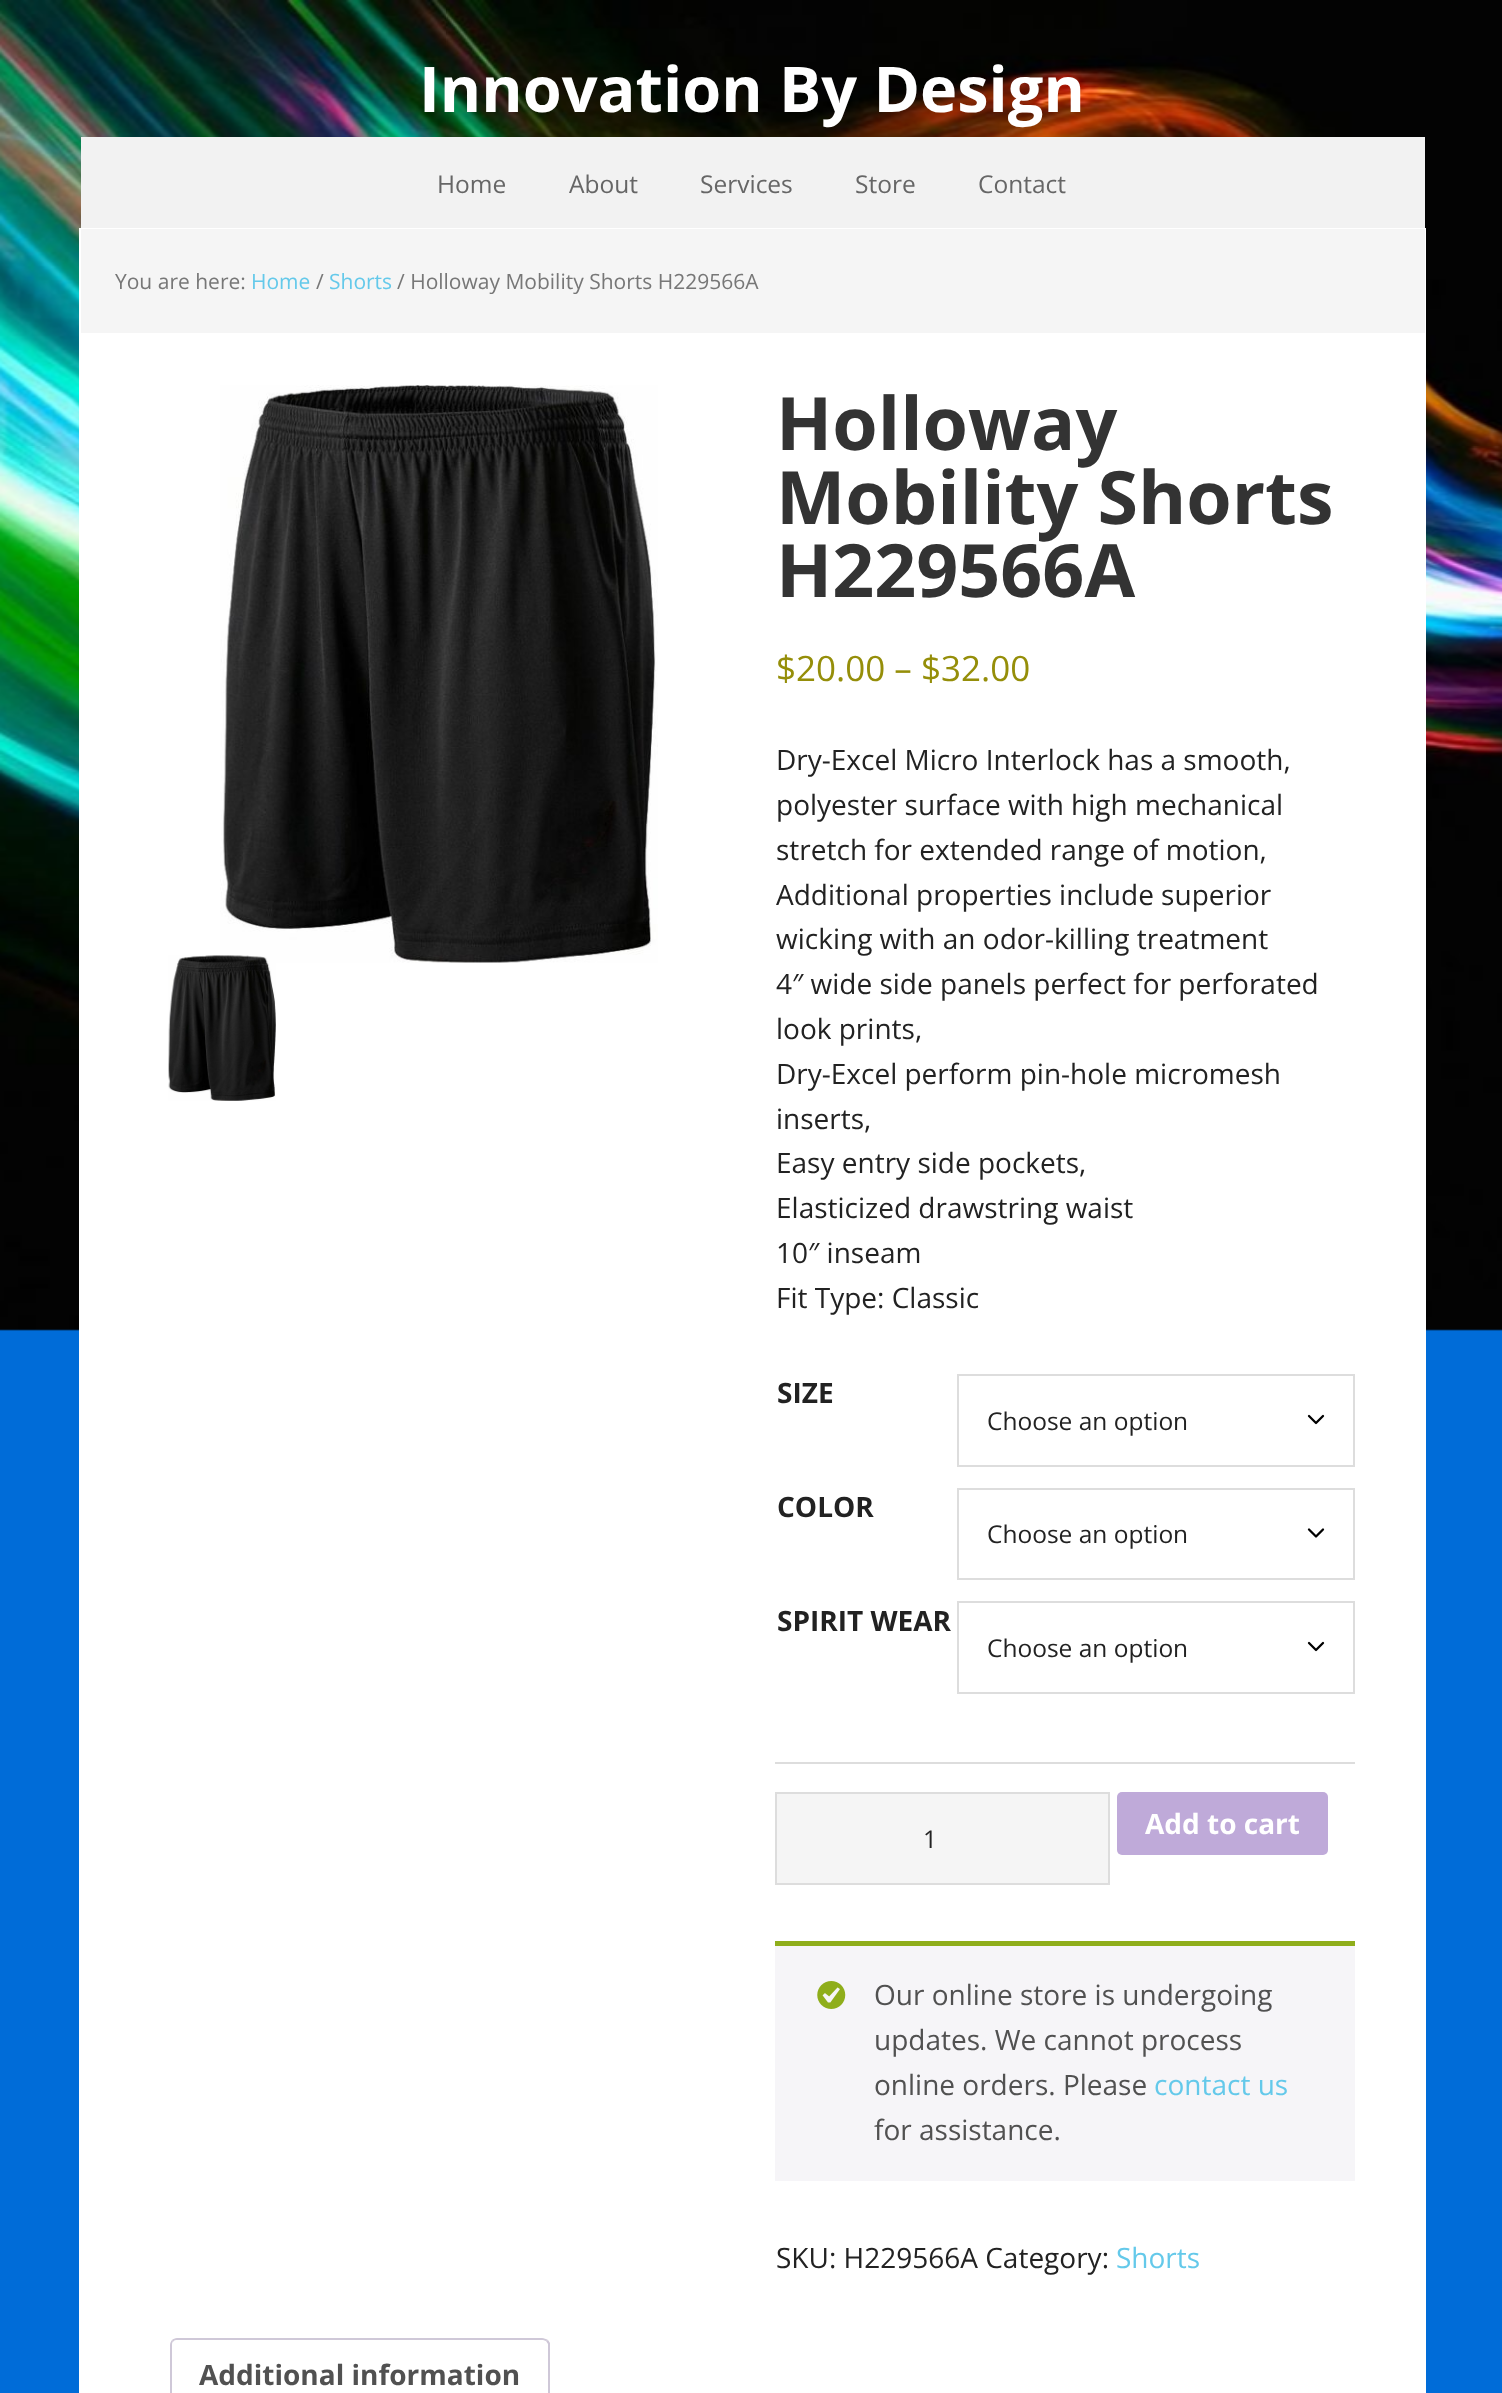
<!DOCTYPE html>
<meta charset="utf-8">
<style>body { margin: 0 } canvas { display: block }</style>
<canvas id="canvas" width="1502" height="2393"></canvas>
<img id="img1" src="images/1.png" hidden>
<img id="img2" src="images/2.png" hidden>
<img id="img3" src="images/3.png" hidden>
<img id="img4" src="images/4.png" hidden>
<script>
window.onload = function () {
    const canvas = document.getElementById('canvas');
    const context = canvas.getContext('2d');
    context.miterLimit = 4;
    context.fontKerning = 'normal';

    context.fillStyle = 'rgb(0, 108, 216)';
    context.fillRect(0, 0, 1502, 2393);
    context.drawImage(document.getElementById('img1'), 0, 0, 1502, 1331);
    context.fillStyle = 'rgb(242, 242, 242)';
    context.fillRect(81, 137, 1344, 91);
    context.strokeStyle = 'rgb(255, 255, 255)';
    context.lineWidth = 2;
    context.strokeRect(80, 229, 1345, 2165);
    context.fillStyle = 'rgb(255, 255, 255)';
    context.fillRect(81, 333, 1343, 2060);
    context.fillStyle = 'rgb(245, 245, 245)';
    context.fillRect(81, 229, 1344, 104);
    context.drawImage(document.getElementById('img2'), 220, 385, 438, 578);
    context.drawImage(document.getElementById('img3'), 168, 955, 108, 146);
    context.fillStyle = 'rgb(221, 221, 221)';
    context.fillRect(775, 1762, 580, 2);
    context.beginPath();
    context.moveTo(1309, 1416);
    context.lineTo(1316, 1423);
    context.lineTo(1323, 1416);
    context.strokeStyle = 'rgb(0, 0, 0)';
    context.lineWidth = 2.3;
    context.lineCap = 'round';
    context.lineJoin = 'round';
    context.stroke();
    context.strokeStyle = 'rgb(221, 221, 221)';
    context.lineWidth = 2;
    context.lineJoin = 'miter';
    context.strokeRect(958, 1375, 396, 91);
    context.beginPath();
    context.moveTo(1309, 1529.5);
    context.lineTo(1316, 1536.5);
    context.lineTo(1323, 1529.5);
    context.strokeStyle = 'rgb(0, 0, 0)';
    context.lineWidth = 2.3;
    context.lineJoin = 'round';
    context.stroke();
    context.strokeStyle = 'rgb(221, 221, 221)';
    context.lineWidth = 2;
    context.lineJoin = 'miter';
    context.strokeRect(958, 1489, 396, 90);
    context.beginPath();
    context.moveTo(1309, 1643);
    context.lineTo(1316, 1650);
    context.lineTo(1323, 1643);
    context.strokeStyle = 'rgb(0, 0, 0)';
    context.lineWidth = 2.3;
    context.lineJoin = 'round';
    context.stroke();
    context.strokeStyle = 'rgb(221, 221, 221)';
    context.lineWidth = 2;
    context.lineJoin = 'miter';
    context.strokeRect(958, 1602, 396, 91);
    context.fillStyle = 'rgb(191, 170, 217)';
    context.beginPath();
    context.roundRect(1117, 1792, 211, 63, 5);
    context.fill();
    context.fillStyle = 'rgb(245, 245, 245)';
    context.beginPath();
    context.rect(776, 1793, 333, 91);
    context.fill();
    context.stroke();
    context.fillStyle = 'rgb(246, 245, 248)';
    context.fillRect(775, 1946, 580, 235);
    context.fillStyle = 'rgb(143, 174, 27)';
    context.fillRect(775, 1941, 580, 5);
    context.drawImage(document.getElementById('img4'), 817, 1981, 29, 28);
    context.fillStyle = 'rgb(207, 200, 216)';
    context.beginPath();
    context.moveTo(177, 2338);
    context.bezierCurveTo(175, 2338, 173, 2339, 172, 2340);
    context.lineTo(173, 2342);
    context.bezierCurveTo(174, 2340, 176, 2340, 177, 2340);
    context.lineTo(543, 2340);
    context.lineTo(546, 2341);
    context.lineTo(548, 2340);
    context.bezierCurveTo(546, 2339, 544, 2338, 542, 2338);
    context.closePath();
    context.fill();
    context.beginPath();
    context.moveTo(550, 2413);
    context.lineTo(548, 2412);
    context.lineTo(548, 2344);
    context.lineTo(546, 2341);
    context.lineTo(548, 2340);
    context.lineTo(550, 2343);
    context.closePath();
    context.fill();
    context.beginPath();
    context.moveTo(172, 2340);
    context.bezierCurveTo(171, 2341, 170, 2343, 170, 2345);
    context.lineTo(170, 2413);
    context.lineTo(172, 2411);
    context.lineTo(172, 2345);
    context.bezierCurveTo(172, 2344, 172, 2342, 173, 2342);
    context.closePath();
    context.fill();
    context.font = 'bold 63px Open Sans';
    context.fillStyle = 'rgb(255, 255, 255)';
    context.fillText('Innovation By Design', 419, 112);
    context.font = '24.5px Open Sans';
    context.fillStyle = 'rgb(102, 102, 102)';
    context.fillText('Home', 437, 193);
    context.fillText('About', 569, 193);
    context.fillText('Services', 700, 193);
    context.fillText('Store', 855, 193);
    context.fillText('Contact', 978, 193);
    context.font = '21px Open Sans';
    context.fillStyle = 'rgb(119, 119, 119)';
    context.fillText('You are here:', 115, 289);
    context.fillStyle = 'rgb(100, 201, 234)';
    context.fillText('Home', 251, 289);
    context.fillStyle = 'rgb(119, 119, 119)';
    context.fillText('/', 316, 289);
    context.fillStyle = 'rgb(100, 201, 234)';
    context.fillText('Shorts', 329, 289);
    context.fillStyle = 'rgb(119, 119, 119)';
    context.fillText('/ Holloway Mobility Shorts H229566A', 397, 289);
    context.font = 'bold 73.5px Open Sans';
    context.fillStyle = 'rgb(51, 51, 51)';
    context.fillText('Holloway', 776, 450);
    context.fillText('Mobility Shorts', 776, 524);
    context.fillText('H229566A', 776, 597);
    context.font = '35px Open Sans';
    context.fillStyle = 'rgb(149, 142, 9)';
    context.fillText('$20.00 – $32.00', 776, 681);
    context.font = '28px Open Sans';
    context.fillStyle = 'rgb(34, 34, 34)';
    context.fillText('Dry-Excel Micro Interlock has a smooth,', 776, 770);
    context.fillText('polyester surface with high mechanical', 776, 815);
    context.fillText('stretch for extended range of motion,', 776, 860);
    context.fillText('Additional properties include superior', 776, 905);
    context.fillText('wicking with an odor-killing treatment', 776, 949);
    context.fillText('4″ wide side panels perfect for perforated', 776, 994);
    context.fillText('look prints,', 776, 1039);
    context.fillText('Dry-Excel perform pin-hole micromesh', 776, 1084);
    context.fillText('inserts,', 776, 1129);
    context.fillText('Easy entry side pockets,', 776, 1173);
    context.fillText('Elasticized drawstring waist', 776, 1218);
    context.fillText('10″ inseam', 776, 1263);
    context.fillText('Fit Type: Classic', 776, 1308);
    context.font = 'bold 28px Open Sans';
    context.fillText('SIZE', 777, 1403);
    context.font = '24.5px Open Sans';
    context.fillText('Choose an option', 987, 1430);
    context.font = 'bold 28px Open Sans';
    context.fillText('COLOR', 777, 1517);
    context.font = '24.5px Open Sans';
    context.fillText('Choose an option', 987, 1543);
    context.font = 'bold 28px Open Sans';
    context.fillText('SPIRIT WEAR', 777, 1631);
    context.font = '24.5px Open Sans';
    context.fillText('Choose an option', 987, 1657);
    context.font = 'bold 28px Open Sans';
    context.fillStyle = 'rgb(255, 255, 255)';
    context.fillText('Add to cart', 1145, 1834);
    context.font = '24.5px Open Sans';
    context.fillStyle = 'rgb(34, 34, 34)';
    context.fillText('1', 923, 1848);
    context.font = '28px Open Sans';
    context.fillStyle = 'rgb(81, 81, 81)';
    context.fillText('Our online store is undergoing', 874, 2005);
    context.fillText('updates. We cannot process', 874, 2050);
    context.fillText('online orders. Please', 874, 2095);
    context.fillStyle = 'rgb(100, 201, 234)';
    context.fillText('contact us', 1154, 2095);
    context.fillStyle = 'rgb(81, 81, 81)';
    context.fillText('for assistance.', 874, 2140);
    context.fillStyle = 'rgb(34, 34, 34)';
    context.fillText('SKU: H229566A Category:', 776, 2268);
    context.fillStyle = 'rgb(100, 201, 234)';
    context.fillText('Shorts', 1116, 2268);
    context.font = 'bold 28px Open Sans';
    context.fillStyle = 'rgb(81, 81, 81)';
    context.fillText('Additional information', 199, 2385);
};
</script>
